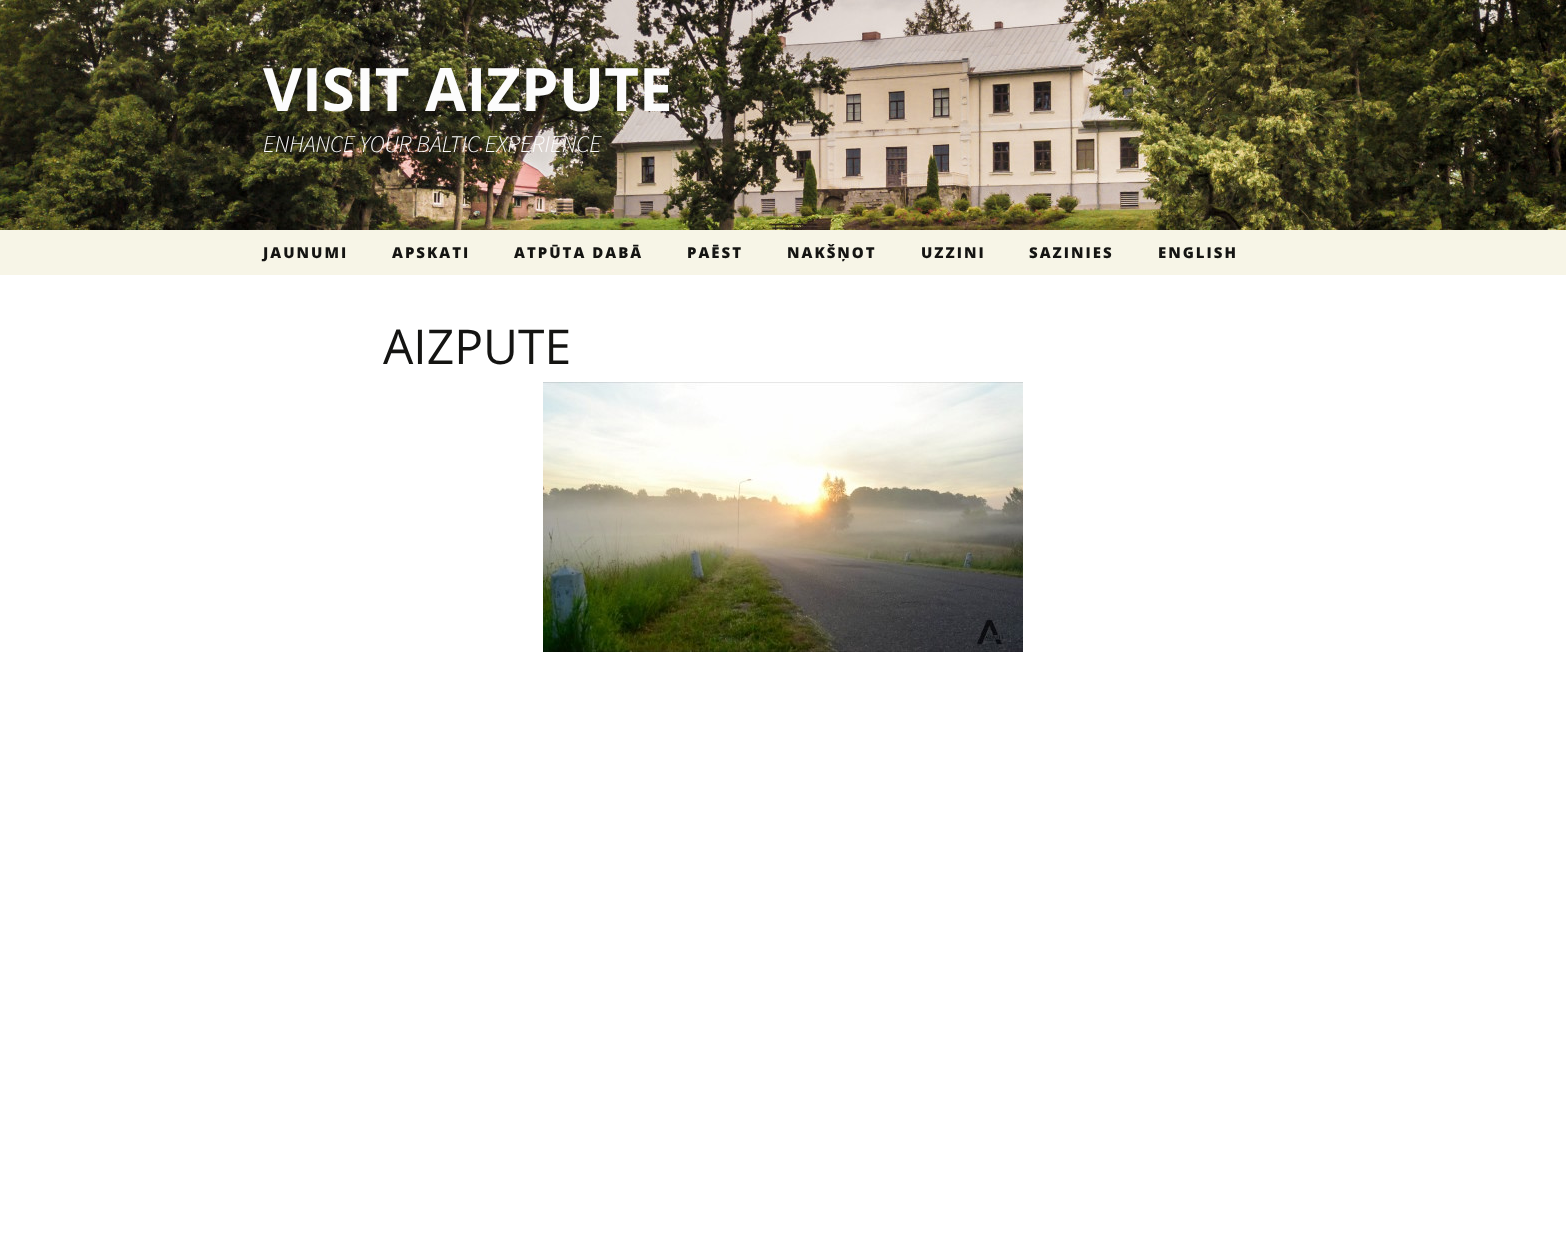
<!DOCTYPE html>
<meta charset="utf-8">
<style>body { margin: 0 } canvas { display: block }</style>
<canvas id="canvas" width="1566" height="1241"></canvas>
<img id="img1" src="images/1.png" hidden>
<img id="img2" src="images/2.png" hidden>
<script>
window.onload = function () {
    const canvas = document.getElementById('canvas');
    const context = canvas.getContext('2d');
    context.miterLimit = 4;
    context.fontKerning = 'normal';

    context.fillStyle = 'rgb(255, 255, 255)';
    context.fillRect(0, 0, 1566, 1241);
    context.drawImage(document.getElementById('img1'), 0, 0, 1566, 230);
    context.fillStyle = 'rgb(247, 245, 231)';
    context.fillRect(0, 230, 1566, 45);
    context.drawImage(document.getElementById('img2'), 543, 382, 480, 270);
    context.font = 'bold 60px Open Sans';
    context.fillStyle = 'rgb(252, 252, 252)';
    context.fillText('VISIT AIZPUTE', 263, 111);
    context.font = 'italic 300 24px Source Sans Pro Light';
    context.fillText('ENHANCE YOUR BALTIC EXPERIENCE', 263, 152);
    context.letterSpacing = '2px';
    context.font = '800 15px Open Sans';
    context.fillStyle = 'rgb(20, 20, 18)';
    context.fillText('JAUNUMI', 263, 258);
    context.fillText('APSKATI', 392, 258);
    context.fillText('ATPŪTA DABĀ', 514, 258);
    context.fillText('PAĒST', 687, 258);
    context.fillText('NAKŠŅOT', 787, 258);
    context.fillText('UZZINI', 921, 258);
    context.fillText('SAZINIES', 1029, 258);
    context.fillText('ENGLISH', 1158, 258);
    context.letterSpacing = '0px';
    context.font = '48px Open Sans';
    context.fillText('AIZPUTE', 383, 364);
};
</script>
